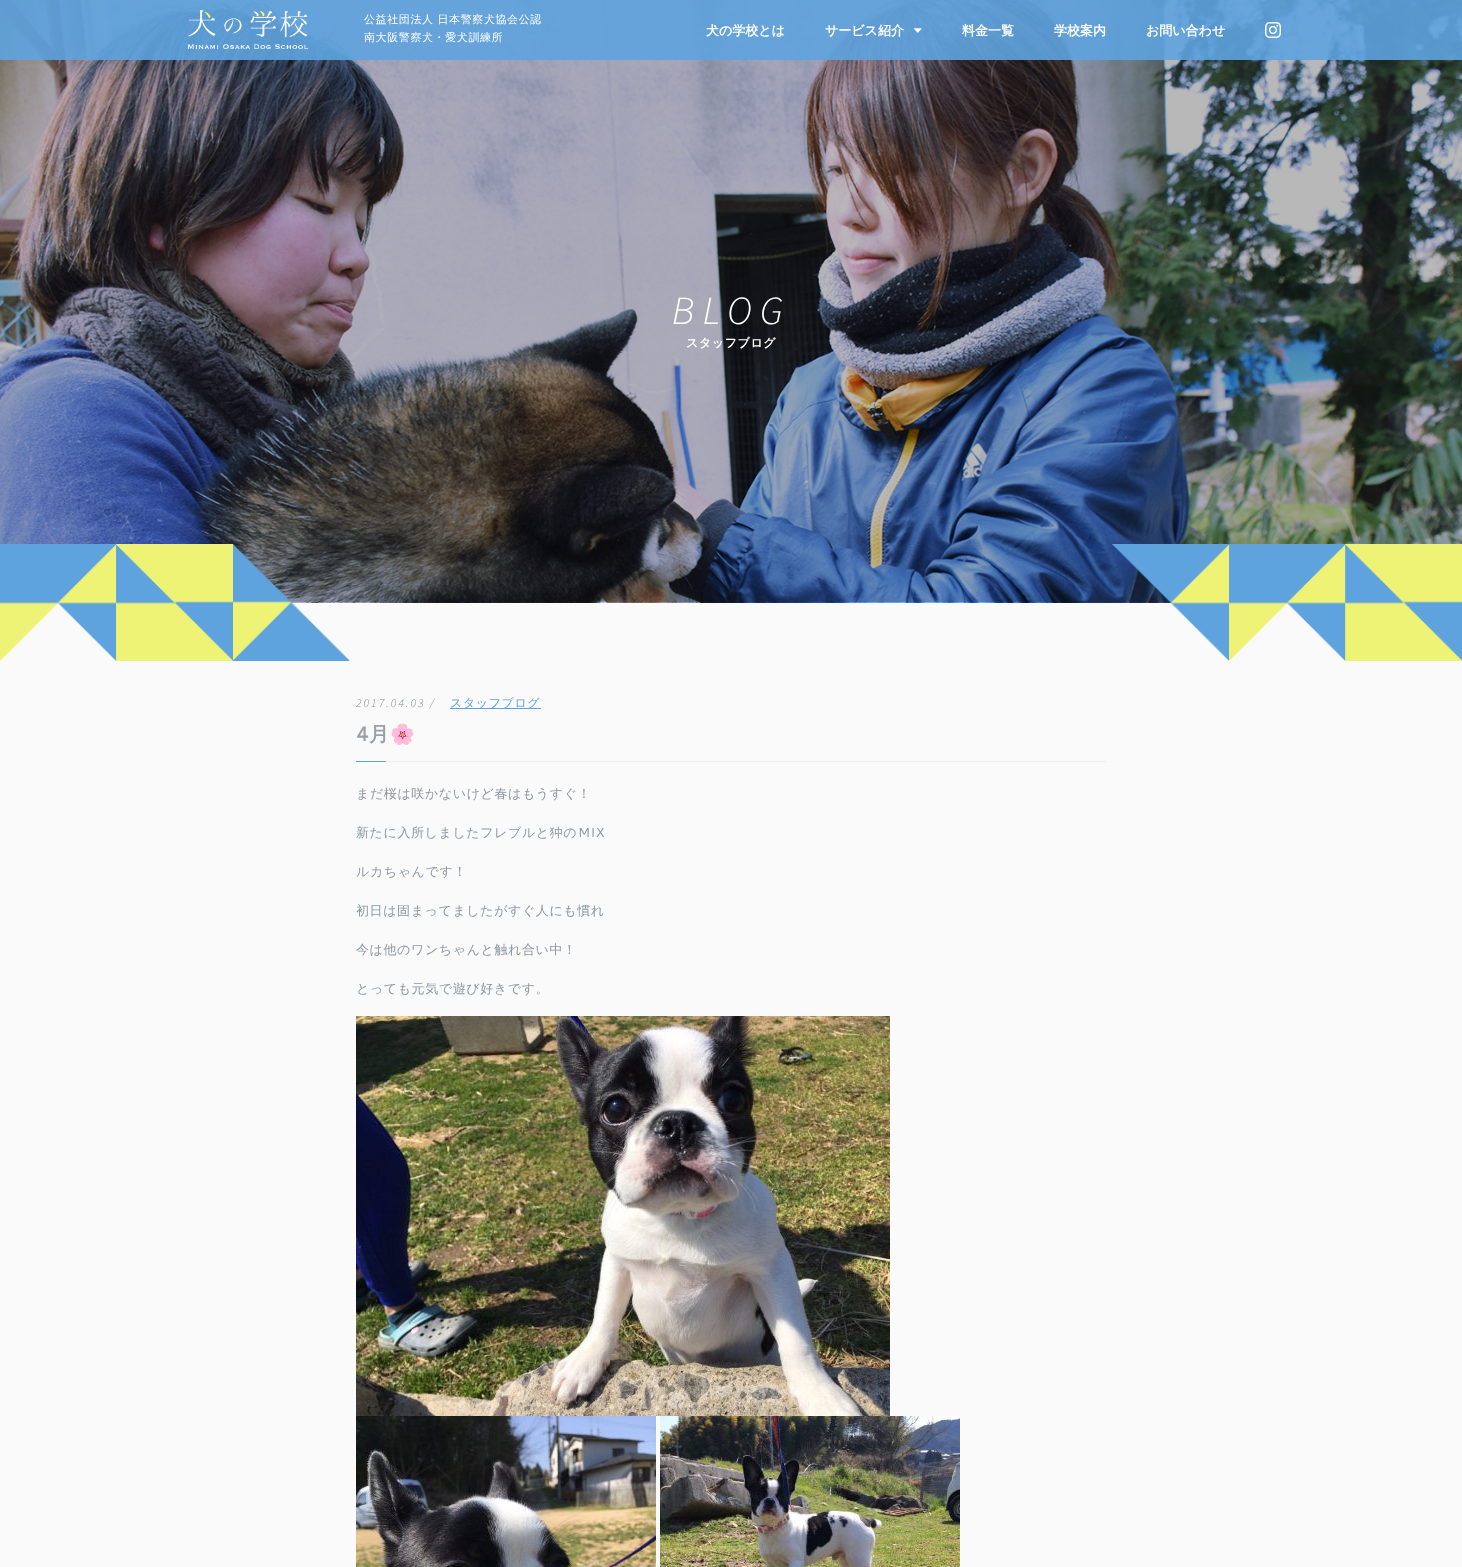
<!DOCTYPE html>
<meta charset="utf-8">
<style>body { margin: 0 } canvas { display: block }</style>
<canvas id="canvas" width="1462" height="1567"></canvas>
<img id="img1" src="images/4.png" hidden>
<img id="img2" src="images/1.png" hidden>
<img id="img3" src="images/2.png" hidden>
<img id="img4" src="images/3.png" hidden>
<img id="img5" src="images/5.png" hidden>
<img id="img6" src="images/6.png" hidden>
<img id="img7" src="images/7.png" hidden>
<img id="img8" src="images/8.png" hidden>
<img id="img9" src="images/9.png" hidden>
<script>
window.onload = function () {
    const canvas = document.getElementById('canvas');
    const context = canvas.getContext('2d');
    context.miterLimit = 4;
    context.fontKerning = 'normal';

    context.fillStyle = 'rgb(250, 250, 250)';
    context.fillRect(0, 0, 1462, 1567);
    context.drawImage(document.getElementById('img1'), 0, 0, 1462, 603);
    context.fillStyle = 'rgba(94, 163, 222, 0.9)';
    context.fillRect(0, 0, 1462, 60);
    context.drawImage(document.getElementById('img2'), 187, 10, 121, 39);
    context.drawImage(document.getElementById('img3'), 914, 28, 8, 5);
    context.drawImage(document.getElementById('img4'), 1265, 22, 16, 16);
    context.drawImage(document.getElementById('img5'), 0, 544, 350, 117);
    context.drawImage(document.getElementById('img6'), 1112, 544, 350, 117);
    context.fillStyle = 'rgb(94, 163, 222)';
    context.fillRect(450, 708, 91, 1);
    context.fillStyle = 'rgb(238, 238, 238)';
    context.fillRect(386, 761, 720, 1);
    context.fillStyle = 'rgb(94, 163, 222)';
    context.fillRect(356, 761, 30, 1);
    context.drawImage(document.getElementById('img7'), 356, 1016, 534, 400);
    context.drawImage(document.getElementById('img8'), 356, 1416, 300, 151);
    context.drawImage(document.getElementById('img9'), 660, 1416, 300, 151);
    context.letterSpacing = '0.6px';
    context.font = '500 11px WenQuanYi Zen Hei';
    context.fillStyle = 'rgb(255, 255, 255)';
    context.fillText('公益社団法人 日本警察犬協会公認', 364, 23);
    context.fillText('南大阪警察犬・愛犬訓練所', 364, 41);
    context.letterSpacing = '0px';
    context.font = 'bold 13px WenQuanYi Zen Hei';
    context.fillText('犬の学校とは', 706, 35);
    context.fillText('サービス紹介', 825, 35);
    context.fillText('料金一覧', 962, 35);
    context.fillText('学校案内', 1054, 35);
    context.fillText('お問い合わせ', 1146, 35);
    context.letterSpacing = '8px';
    context.font = 'italic 300 40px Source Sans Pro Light';
    context.fillText('BLOG', 672, 324);
    context.letterSpacing = '0.6px';
    context.font = 'bold 12px WenQuanYi Zen Hei';
    context.fillText('スタッフブログ', 686, 347);
    context.letterSpacing = '2px';
    context.font = 'italic 300 12px Source Sans Pro Light';
    context.fillStyle = 'rgb(127, 135, 140)';
    context.fillText('2017.04.03 /', 356, 707);
    context.letterSpacing = '0.6px';
    context.font = '500 12px WenQuanYi Zen Hei';
    context.fillStyle = 'rgb(94, 163, 222)';
    context.fillText('スタッフブログ', 450, 707);
    context.font = 'bold 20px Cantarell';
    context.fillStyle = 'rgb(154, 160, 164)';
    context.fillText('4', 356, 741);
    context.font = 'bold 20px WenQuanYi Zen Hei';
    context.fillText('月', 369, 741);
    context.font = 'bold 20px Noto Color Emoji';
    context.fillText('🌸', 390, 741);
    context.font = '500 13px WenQuanYi Zen Hei';
    context.fillStyle = 'rgb(141, 151, 163)';
    context.fillText('まだ桜は咲かないけど春はもうすぐ！', 356, 798);
    context.fillText('新たに入所しましたフレブルと狆の', 356, 837);
    context.font = '13px Cantarell';
    context.fillText('MIX', 578, 837);
    context.font = '500 13px WenQuanYi Zen Hei';
    context.fillText('ルカちゃんです！', 356, 876);
    context.fillText('初日は固まってましたがすぐ人にも慣れ', 356, 915);
    context.fillText('今は他のワンちゃんと触れ合い中！', 356, 954);
    context.fillText('とっても元気で遊び好きです。', 356, 993);
};
</script>
